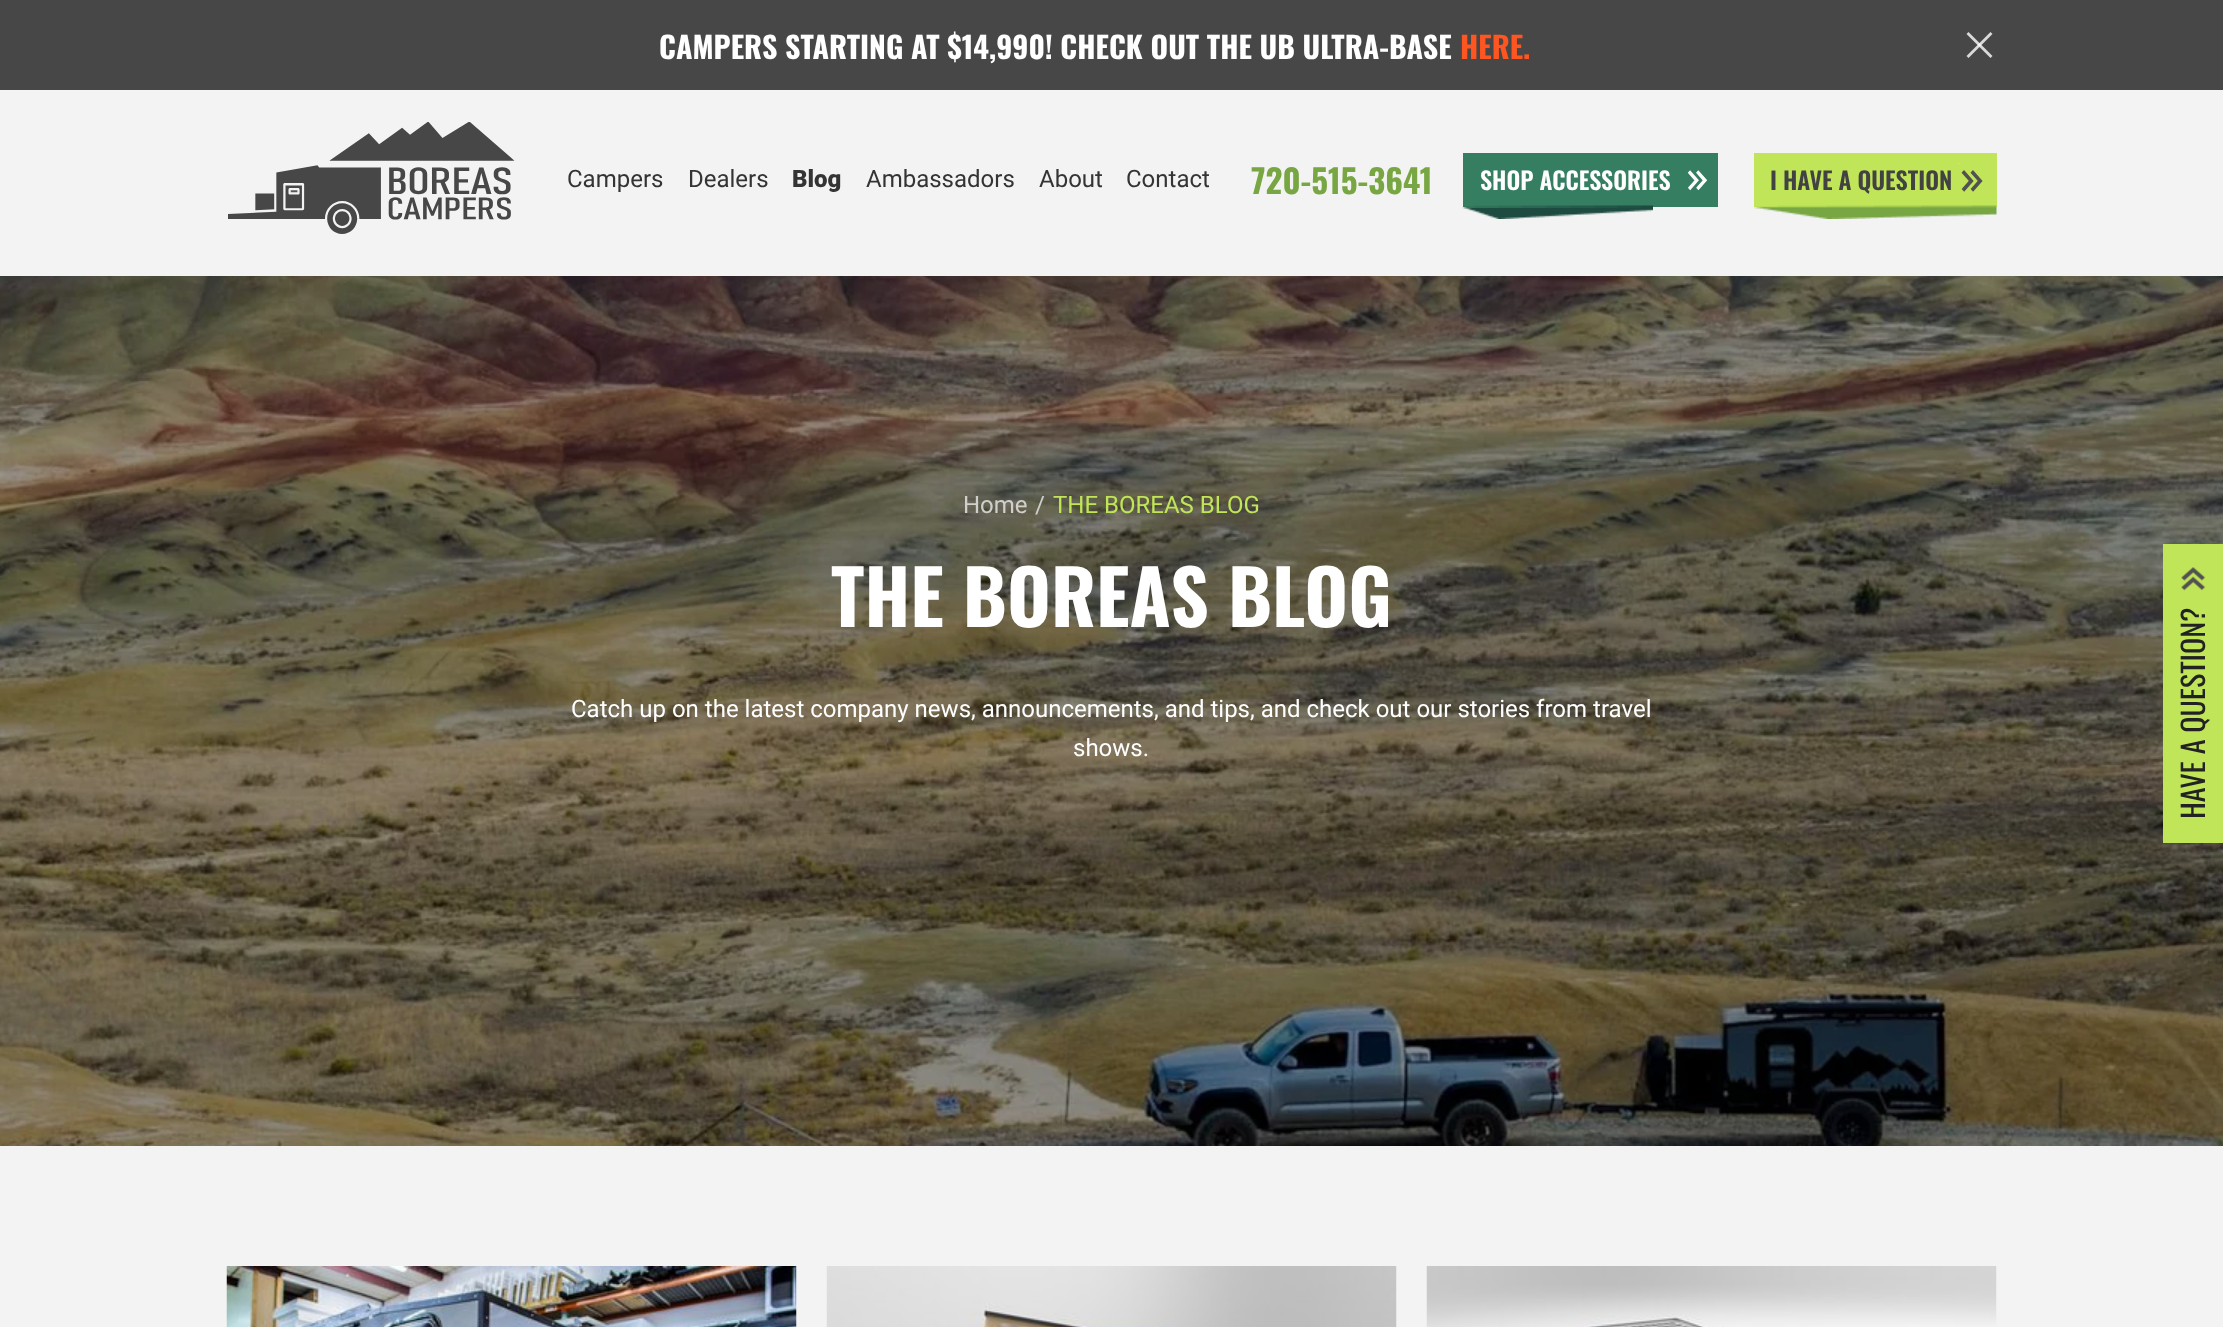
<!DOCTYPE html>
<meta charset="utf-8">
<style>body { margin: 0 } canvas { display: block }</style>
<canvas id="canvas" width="2223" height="1327"></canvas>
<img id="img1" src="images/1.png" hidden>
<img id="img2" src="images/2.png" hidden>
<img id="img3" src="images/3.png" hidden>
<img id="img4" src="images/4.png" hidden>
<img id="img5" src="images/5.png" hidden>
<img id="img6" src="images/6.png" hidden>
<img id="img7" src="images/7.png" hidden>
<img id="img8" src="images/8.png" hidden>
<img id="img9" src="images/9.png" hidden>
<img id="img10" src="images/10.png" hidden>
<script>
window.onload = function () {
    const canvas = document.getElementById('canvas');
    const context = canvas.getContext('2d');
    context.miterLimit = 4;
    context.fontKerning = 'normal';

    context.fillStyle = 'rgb(243, 243, 243)';
    context.fillRect(0, 0, 2223, 1327);
    context.fillStyle = 'rgb(71, 71, 71)';
    context.fillRect(0, 0, 2223, 90);
    context.fillStyle = 'rgba(255, 255, 255, 0.8)';
    context.beginPath();
    context.moveTo(1990.5, 58);
    context.lineTo(1966.5, 34);
    context.lineTo(1968.5, 32);
    context.lineTo(1992.5, 56);
    context.closePath();
    context.fill();
    context.beginPath();
    context.moveTo(1966.5, 56);
    context.lineTo(1990.5, 32);
    context.lineTo(1992.5, 34);
    context.lineTo(1968.5, 58);
    context.closePath();
    context.fill();
    context.drawImage(document.getElementById('img1'), 228, 122, 287, 112);
    context.fillStyle = 'rgb(53, 126, 98)';
    context.fillRect(1463, 153, 255, 54);
    context.drawImage(document.getElementById('img2'), 1687, 170, 21, 21);
    context.drawImage(document.getElementById('img3'), 1462, 205, 191, 14);
    context.fillStyle = 'rgb(193, 229, 88)';
    context.fillRect(1754, 153, 243, 54);
    context.drawImage(document.getElementById('img4'), 1958, 163, 25, 29);
    context.drawImage(document.getElementById('img5'), 1753, 205, 244, 14);
    context.drawImage(document.getElementById('img6'), 0, 276, 2223, 870);
    context.drawImage(document.getElementById('img7'), 226, 1266, 571, 61);
    context.drawImage(document.getElementById('img8'), 826, 1266, 571, 61);
    context.drawImage(document.getElementById('img9'), 1426, 1266, 571, 61);
    context.fillRect(2163, 544, 60, 299);
    context.drawImage(document.getElementById('img10'), 2181, 567, 25, 24);
    context.font = 'bold 30px Oswald';
    context.fillStyle = 'rgb(255, 255, 255)';
    context.fillText('CAMPERS STARTING AT $14,990! CHECK OUT THE UB ULTRA-BASE', 659, 59);
    context.fillStyle = 'rgb(255, 85, 32)';
    context.fillText('HERE.', 1460, 59);
    context.font = '24px Roboto';
    context.fillStyle = 'rgb(52, 52, 52)';
    context.fillText('Campers', 567, 187);
    context.fillText('Dealers', 688, 187);
    context.font = '900 24px Roboto';
    context.fillText('Blog', 792, 187);
    context.font = '24px Roboto';
    context.fillText('Ambassadors', 866, 187);
    context.fillText('About', 1039, 187);
    context.fillText('Contact', 1126, 187);
    context.font = 'bold 33px Oswald';
    context.fillStyle = 'rgb(119, 166, 66)';
    context.fillText('720-515-3641', 1251, 194);
    context.font = '600 24px Oswald';
    context.fillStyle = 'rgb(255, 255, 255)';
    context.fillText('SHOP ACCESSORIES', 1480, 190);
    context.fillStyle = 'rgb(66, 66, 66)';
    context.fillText('I HAVE A QUESTION', 1770, 190);
    context.font = '24px Roboto';
    context.fillStyle = 'rgb(208, 207, 203)';
    context.fillText('Home', 963, 513);
    context.fillText('/', 1035, 513);
    context.fillStyle = 'rgb(193, 229, 88)';
    context.fillText('THE BOREAS BLOG', 1053, 513);
    context.font = 'bold 75px Oswald';
    context.fillStyle = 'rgb(255, 255, 255)';
    context.fillText('THE BOREAS BLOG', 831, 627);
    context.font = '24px Roboto';
    context.fillText('Catch up on the latest company news, announcements, and tips, and check out our stories from travel', 571, 717);
    context.fillText('shows.', 1073, 756);
    context.font = '30px Oswald';
    context.fillStyle = 'rgb(34, 34, 34)';
    context.save();
    context.translate(2205, 819);
    context.rotate(-90 * Math.PI / 180);
    context.fillText('HAVE A QUESTION?', 0, 0);
    context.restore();
};
</script>
